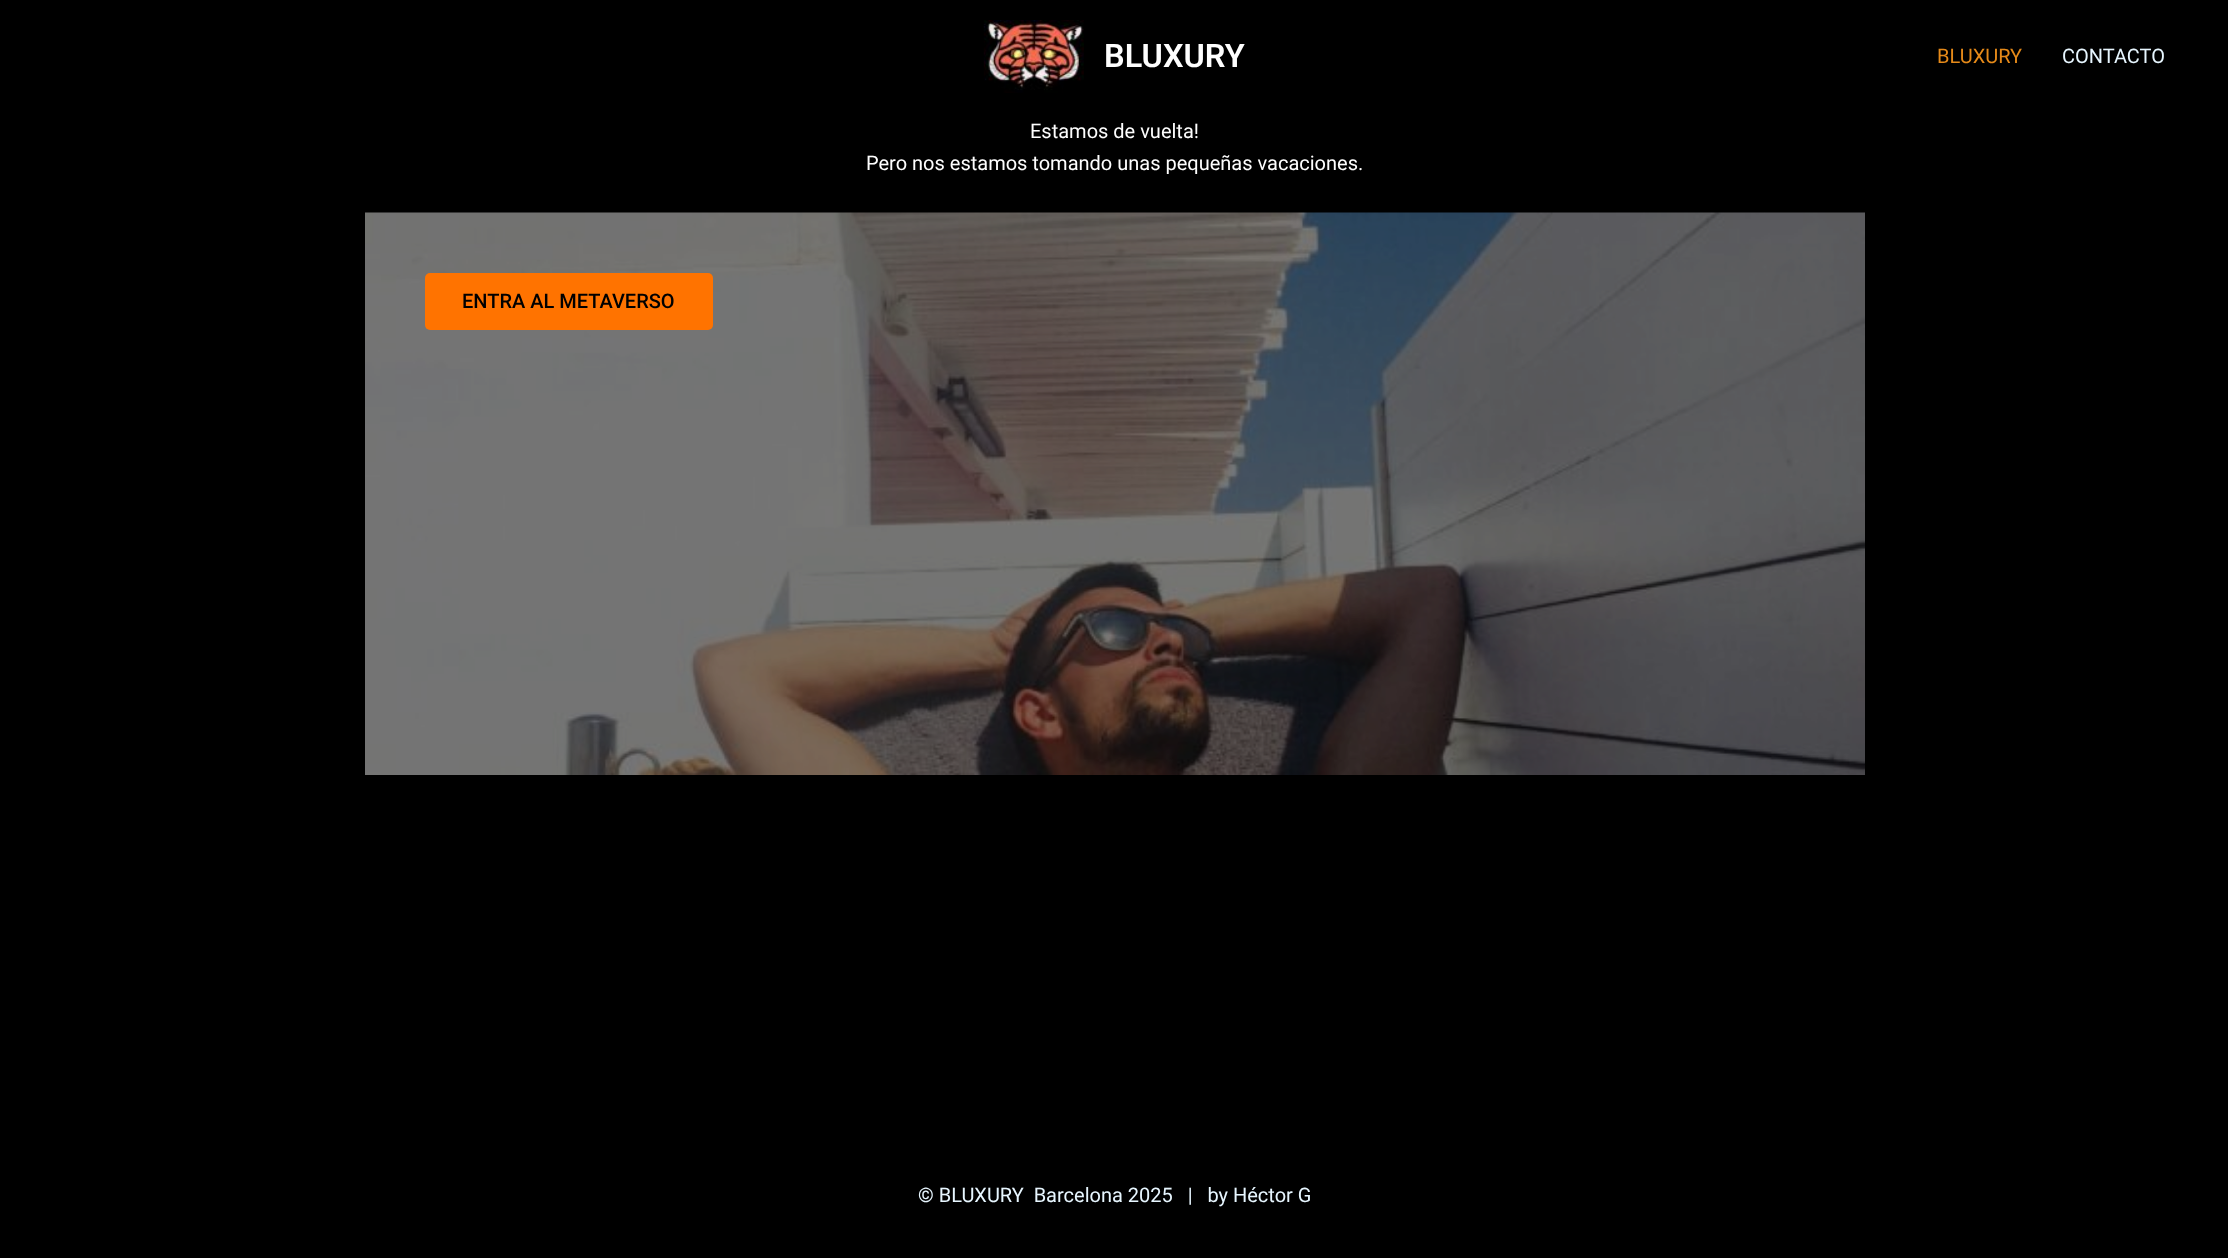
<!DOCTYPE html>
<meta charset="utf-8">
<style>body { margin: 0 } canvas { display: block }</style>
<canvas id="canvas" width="2228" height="1258"></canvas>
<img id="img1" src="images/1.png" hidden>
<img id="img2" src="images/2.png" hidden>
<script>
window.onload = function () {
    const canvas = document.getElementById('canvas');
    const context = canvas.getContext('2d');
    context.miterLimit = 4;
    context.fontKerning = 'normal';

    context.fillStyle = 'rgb(0, 0, 0)';
    context.fillRect(0, 0, 2228, 1258);
    context.drawImage(document.getElementById('img1'), 983, 20, 101, 73);
    context.drawImage(document.getElementById('img2'), 365, 212, 1500, 563);
    context.fillStyle = 'rgb(255, 115, 0)';
    context.beginPath();
    context.roundRect(425, 273, 288, 57, 5);
    context.fill();
    context.font = '600 32.5px Roboto';
    context.fillStyle = 'rgb(254, 254, 254)';
    context.fillText('BLUXURY', 1104, 67);
    context.font = '20px Roboto';
    context.fillStyle = 'rgb(230, 138, 25)';
    context.fillText('BLUXURY', 1937, 63);
    context.fillStyle = 'rgb(231, 246, 255)';
    context.fillText('CONTACTO', 2062, 63);
    context.fillStyle = 'rgb(254, 254, 254)';
    context.fillText('Estamos de vuelta!', 1030, 138);
    context.fillText('Pero nos estamos tomando unas pequeñas vacaciones.', 866, 170);
    context.font = '500 20px Roboto';
    context.fillStyle = 'rgb(0, 0, 0)';
    context.fillText('ENTRA AL METAVERSO', 462, 308);
    context.font = '20px Roboto';
    context.fillStyle = 'rgb(231, 246, 255)';
    context.fillText('© BLUXURY  Barcelona 2025   |   by Héctor G', 918, 1202);
};
</script>
